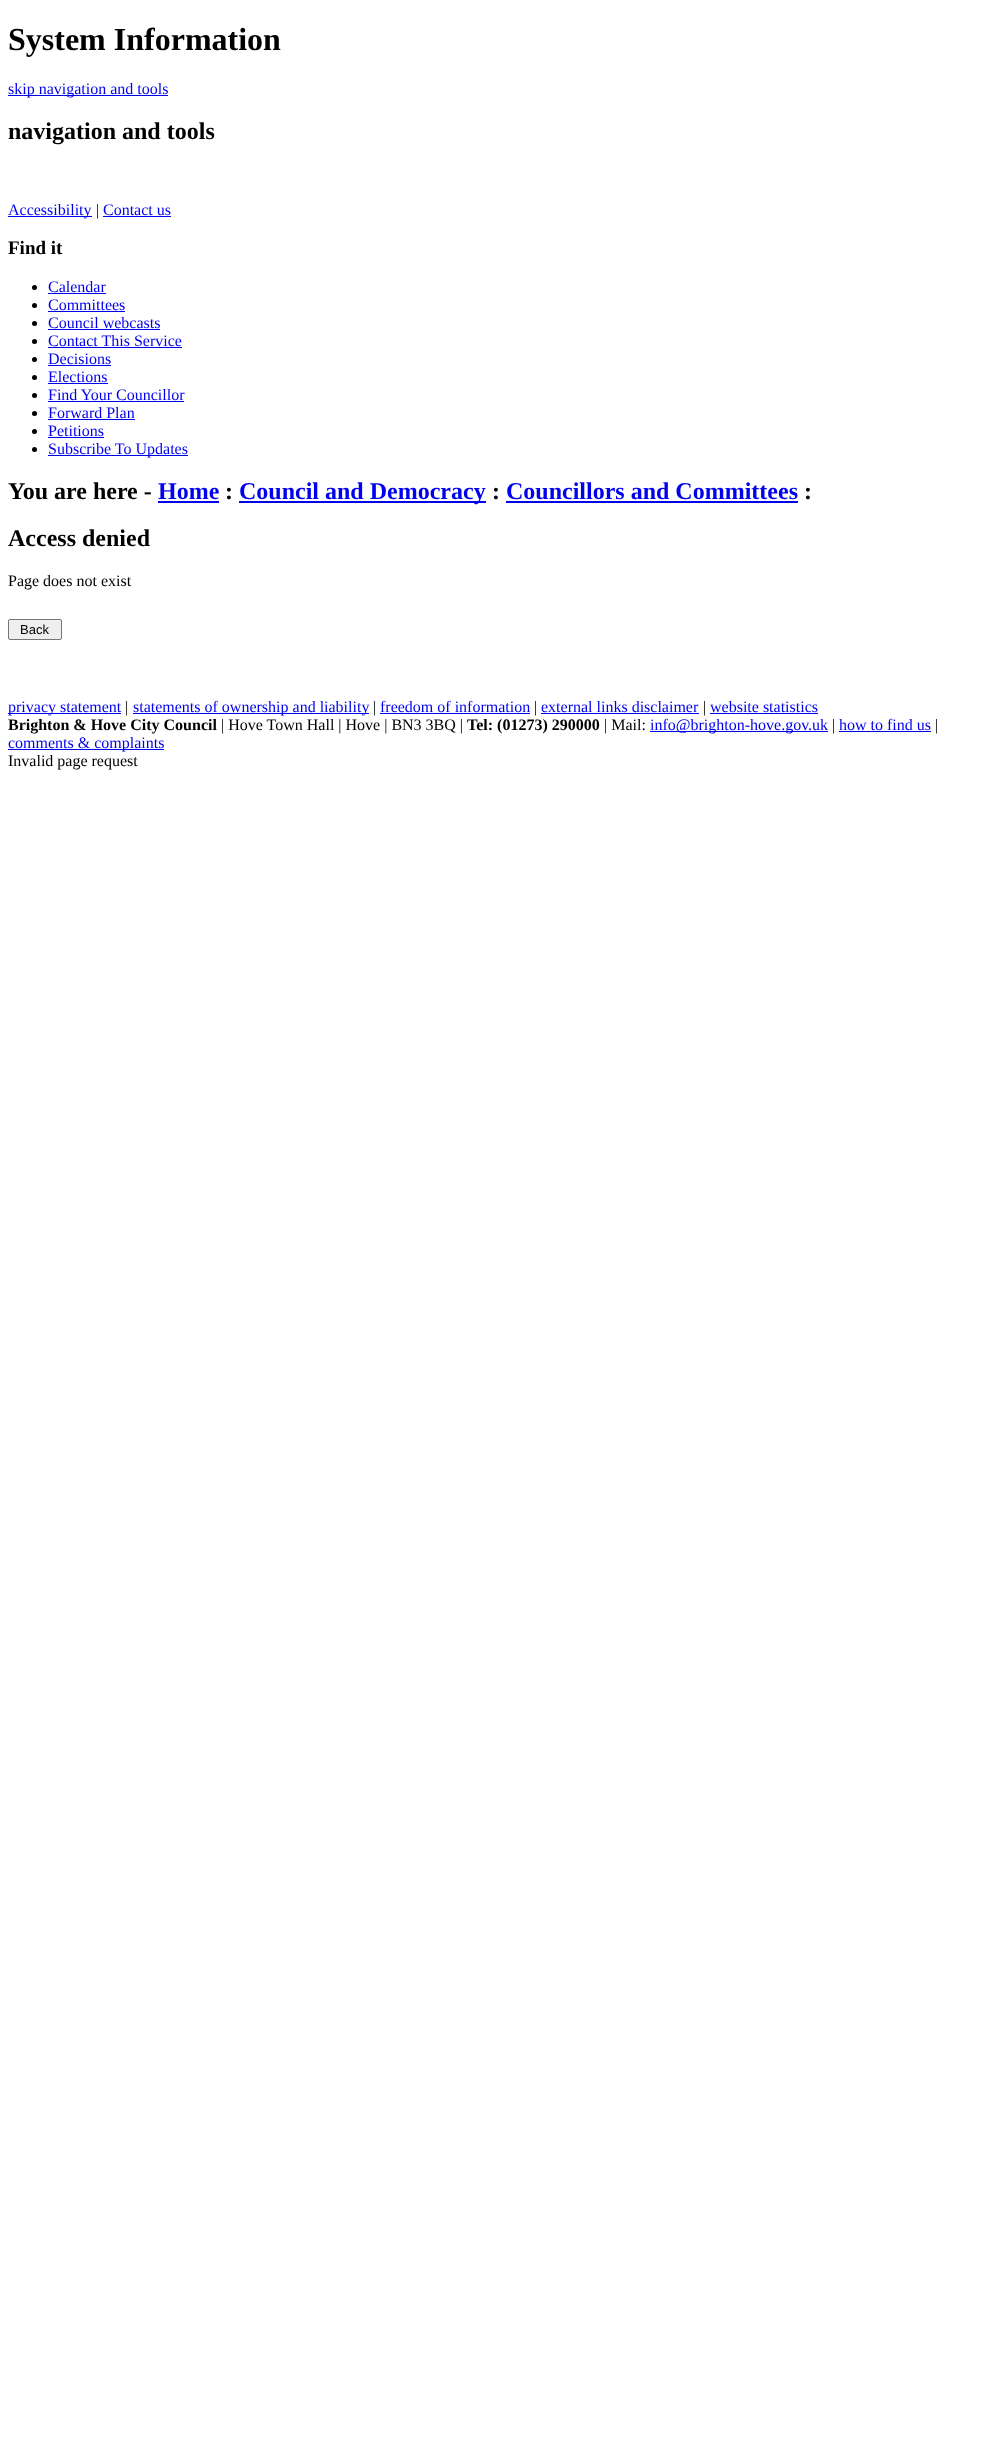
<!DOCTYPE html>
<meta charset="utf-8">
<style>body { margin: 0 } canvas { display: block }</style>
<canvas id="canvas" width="995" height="2463"></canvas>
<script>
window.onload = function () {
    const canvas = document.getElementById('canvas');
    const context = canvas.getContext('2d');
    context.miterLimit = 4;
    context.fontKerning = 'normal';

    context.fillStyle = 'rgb(255, 255, 255)';
    context.fillRect(0, 0, 995, 2463);
    context.fillStyle = 'rgb(0, 0, 238)';
    context.fillRect(8, 95, 160, 1);
    context.fillRect(8, 216, 84, 1);
    context.fillRect(103, 216, 68, 1);
    context.fillStyle = 'rgb(0, 0, 0)';
    context.beginPath();
    context.arc(34.5, 287.5, 2.5, 0, 2 * Math.PI);
    context.fill();
    context.fillStyle = 'rgb(0, 0, 238)';
    context.fillRect(48, 293, 58, 1);
    context.fillStyle = 'rgb(0, 0, 0)';
    context.beginPath();
    context.arc(34.5, 305.5, 2.5, 0, 2 * Math.PI);
    context.fill();
    context.fillStyle = 'rgb(0, 0, 238)';
    context.fillRect(48, 311, 77, 1);
    context.fillStyle = 'rgb(0, 0, 0)';
    context.beginPath();
    context.arc(34.5, 323.5, 2.5, 0, 2 * Math.PI);
    context.fill();
    context.fillStyle = 'rgb(0, 0, 238)';
    context.fillRect(48, 329, 112, 1);
    context.fillStyle = 'rgb(0, 0, 0)';
    context.beginPath();
    context.arc(34.5, 341.5, 2.5, 0, 2 * Math.PI);
    context.fill();
    context.fillStyle = 'rgb(0, 0, 238)';
    context.fillRect(48, 347, 134, 1);
    context.fillStyle = 'rgb(0, 0, 0)';
    context.beginPath();
    context.arc(34.5, 359.5, 2.5, 0, 2 * Math.PI);
    context.fill();
    context.fillStyle = 'rgb(0, 0, 238)';
    context.fillRect(48, 365, 63, 1);
    context.fillStyle = 'rgb(0, 0, 0)';
    context.beginPath();
    context.arc(34.5, 377.5, 2.5, 0, 2 * Math.PI);
    context.fill();
    context.fillStyle = 'rgb(0, 0, 238)';
    context.fillRect(48, 383, 60, 1);
    context.fillStyle = 'rgb(0, 0, 0)';
    context.beginPath();
    context.arc(34.5, 395.5, 2.5, 0, 2 * Math.PI);
    context.fill();
    context.fillStyle = 'rgb(0, 0, 238)';
    context.fillRect(48, 401, 136, 1);
    context.fillStyle = 'rgb(0, 0, 0)';
    context.beginPath();
    context.arc(34.5, 413.5, 2.5, 0, 2 * Math.PI);
    context.fill();
    context.fillStyle = 'rgb(0, 0, 238)';
    context.fillRect(48, 419, 87, 1);
    context.fillStyle = 'rgb(0, 0, 0)';
    context.beginPath();
    context.arc(34.5, 431.5, 2.5, 0, 2 * Math.PI);
    context.fill();
    context.fillStyle = 'rgb(0, 0, 238)';
    context.fillRect(48, 437, 56, 1);
    context.fillStyle = 'rgb(0, 0, 0)';
    context.beginPath();
    context.arc(34.5, 449.5, 2.5, 0, 2 * Math.PI);
    context.fill();
    context.fillStyle = 'rgb(0, 0, 238)';
    context.fillRect(48, 455, 140, 1);
    context.fillRect(158, 501, 61, 2);
    context.fillRect(239, 501, 247, 2);
    context.fillRect(506, 501, 292, 2);
    context.fillStyle = 'rgb(239, 239, 239)';
    context.beginPath();
    context.roundRect(8.5, 619.5, 53, 20, 1.5);
    context.fill();
    context.strokeStyle = 'rgb(118, 118, 118)';
    context.stroke();
    context.fillStyle = 'rgb(0, 0, 238)';
    context.fillRect(8, 713, 113, 1);
    context.fillRect(133, 713, 236, 1);
    context.fillRect(380, 713, 150, 1);
    context.fillRect(541, 713, 158, 1);
    context.fillRect(710, 713, 108, 1);
    context.fillRect(650, 731, 178, 1);
    context.fillRect(839, 731, 92, 1);
    context.fillRect(8, 749, 156, 1);
    context.font = 'bold 32px Liberation Serif';
    context.fillStyle = 'rgb(0, 0, 0)';
    context.fillText('System Information', 8, 50);
    context.font = '16px Liberation Serif';
    context.fillStyle = 'rgb(0, 0, 238)';
    context.fillText('skip navigation and tools', 8, 94);
    context.font = 'bold 24px Liberation Serif';
    context.fillStyle = 'rgb(0, 0, 0)';
    context.fillText('navigation and tools', 8, 139);
    context.font = '16px Liberation Serif';
    context.fillStyle = 'rgb(0, 0, 238)';
    context.fillText('Accessibility', 8, 215);
    context.fillStyle = 'rgb(0, 0, 0)';
    context.fillText('|', 96, 215);
    context.fillStyle = 'rgb(0, 0, 238)';
    context.fillText('Contact us', 103, 215);
    context.font = 'bold 19px Liberation Serif';
    context.fillStyle = 'rgb(0, 0, 0)';
    context.fillText('Find it', 8, 254);
    context.font = '16px Liberation Serif';
    context.fillStyle = 'rgb(0, 0, 238)';
    context.fillText('Calendar', 48, 292);
    context.fillText('Committees', 48, 310);
    context.fillText('Council webcasts', 48, 328);
    context.fillText('Contact This Service', 48, 346);
    context.fillText('Decisions', 48, 364);
    context.fillText('Elections', 48, 382);
    context.fillText('Find Your Councillor', 48, 400);
    context.fillText('Forward Plan', 48, 418);
    context.fillText('Petitions', 48, 436);
    context.fillText('Subscribe To Updates', 48, 454);
    context.font = 'bold 24px Liberation Serif';
    context.fillStyle = 'rgb(0, 0, 0)';
    context.fillText('You are here -', 8, 499);
    context.fillStyle = 'rgb(0, 0, 238)';
    context.fillText('Home', 158, 499);
    context.fillStyle = 'rgb(0, 0, 0)';
    context.fillText(':', 225, 499);
    context.fillStyle = 'rgb(0, 0, 238)';
    context.fillText('Council and Democracy', 239, 499);
    context.fillStyle = 'rgb(0, 0, 0)';
    context.fillText(':', 492, 499);
    context.fillStyle = 'rgb(0, 0, 238)';
    context.fillText('Councillors and Committees', 506, 499);
    context.fillStyle = 'rgb(0, 0, 0)';
    context.fillText(':', 804, 499);
    context.fillText('Access denied', 8, 546);
    context.font = '16px Liberation Serif';
    context.fillText('Page does not exist', 8, 586);
    context.font = '13px Liberation Sans';
    context.fillText('Back', 20, 634);
    context.font = '16px Liberation Serif';
    context.fillStyle = 'rgb(0, 0, 238)';
    context.fillText('privacy statement', 8, 712);
    context.fillStyle = 'rgb(0, 0, 0)';
    context.fillText('|', 125, 712);
    context.fillStyle = 'rgb(0, 0, 238)';
    context.fillText('statements of ownership and liability', 133, 712);
    context.fillStyle = 'rgb(0, 0, 0)';
    context.fillText('|', 373, 712);
    context.fillStyle = 'rgb(0, 0, 238)';
    context.fillText('freedom of information', 380, 712);
    context.fillStyle = 'rgb(0, 0, 0)';
    context.fillText('|', 534, 712);
    context.fillStyle = 'rgb(0, 0, 238)';
    context.fillText('external links disclaimer', 541, 712);
    context.fillStyle = 'rgb(0, 0, 0)';
    context.fillText('|', 703, 712);
    context.fillStyle = 'rgb(0, 0, 238)';
    context.fillText('website statistics', 710, 712);
    context.font = 'bold 16px Liberation Serif';
    context.fillStyle = 'rgb(0, 0, 0)';
    context.fillText('Brighton & Hove City Council', 8, 730);
    context.font = '16px Liberation Serif';
    context.fillText('| Hove Town Hall | Hove | BN3 3BQ |', 221, 730);
    context.font = 'bold 16px Liberation Serif';
    context.fillText('Tel: (01273) 290000', 467, 730);
    context.font = '16px Liberation Serif';
    context.fillText('| Mail:', 604, 730);
    context.fillStyle = 'rgb(0, 0, 238)';
    context.fillText('info@brighton-hove.gov.uk', 650, 730);
    context.fillStyle = 'rgb(0, 0, 0)';
    context.fillText('|', 832, 730);
    context.fillStyle = 'rgb(0, 0, 238)';
    context.fillText('how to find us', 839, 730);
    context.fillStyle = 'rgb(0, 0, 0)';
    context.fillText('|', 935, 730);
    context.fillStyle = 'rgb(0, 0, 238)';
    context.fillText('comments & complaints', 8, 748);
    context.fillStyle = 'rgb(0, 0, 0)';
    context.fillText('Invalid page request', 8, 766);
};
</script>
